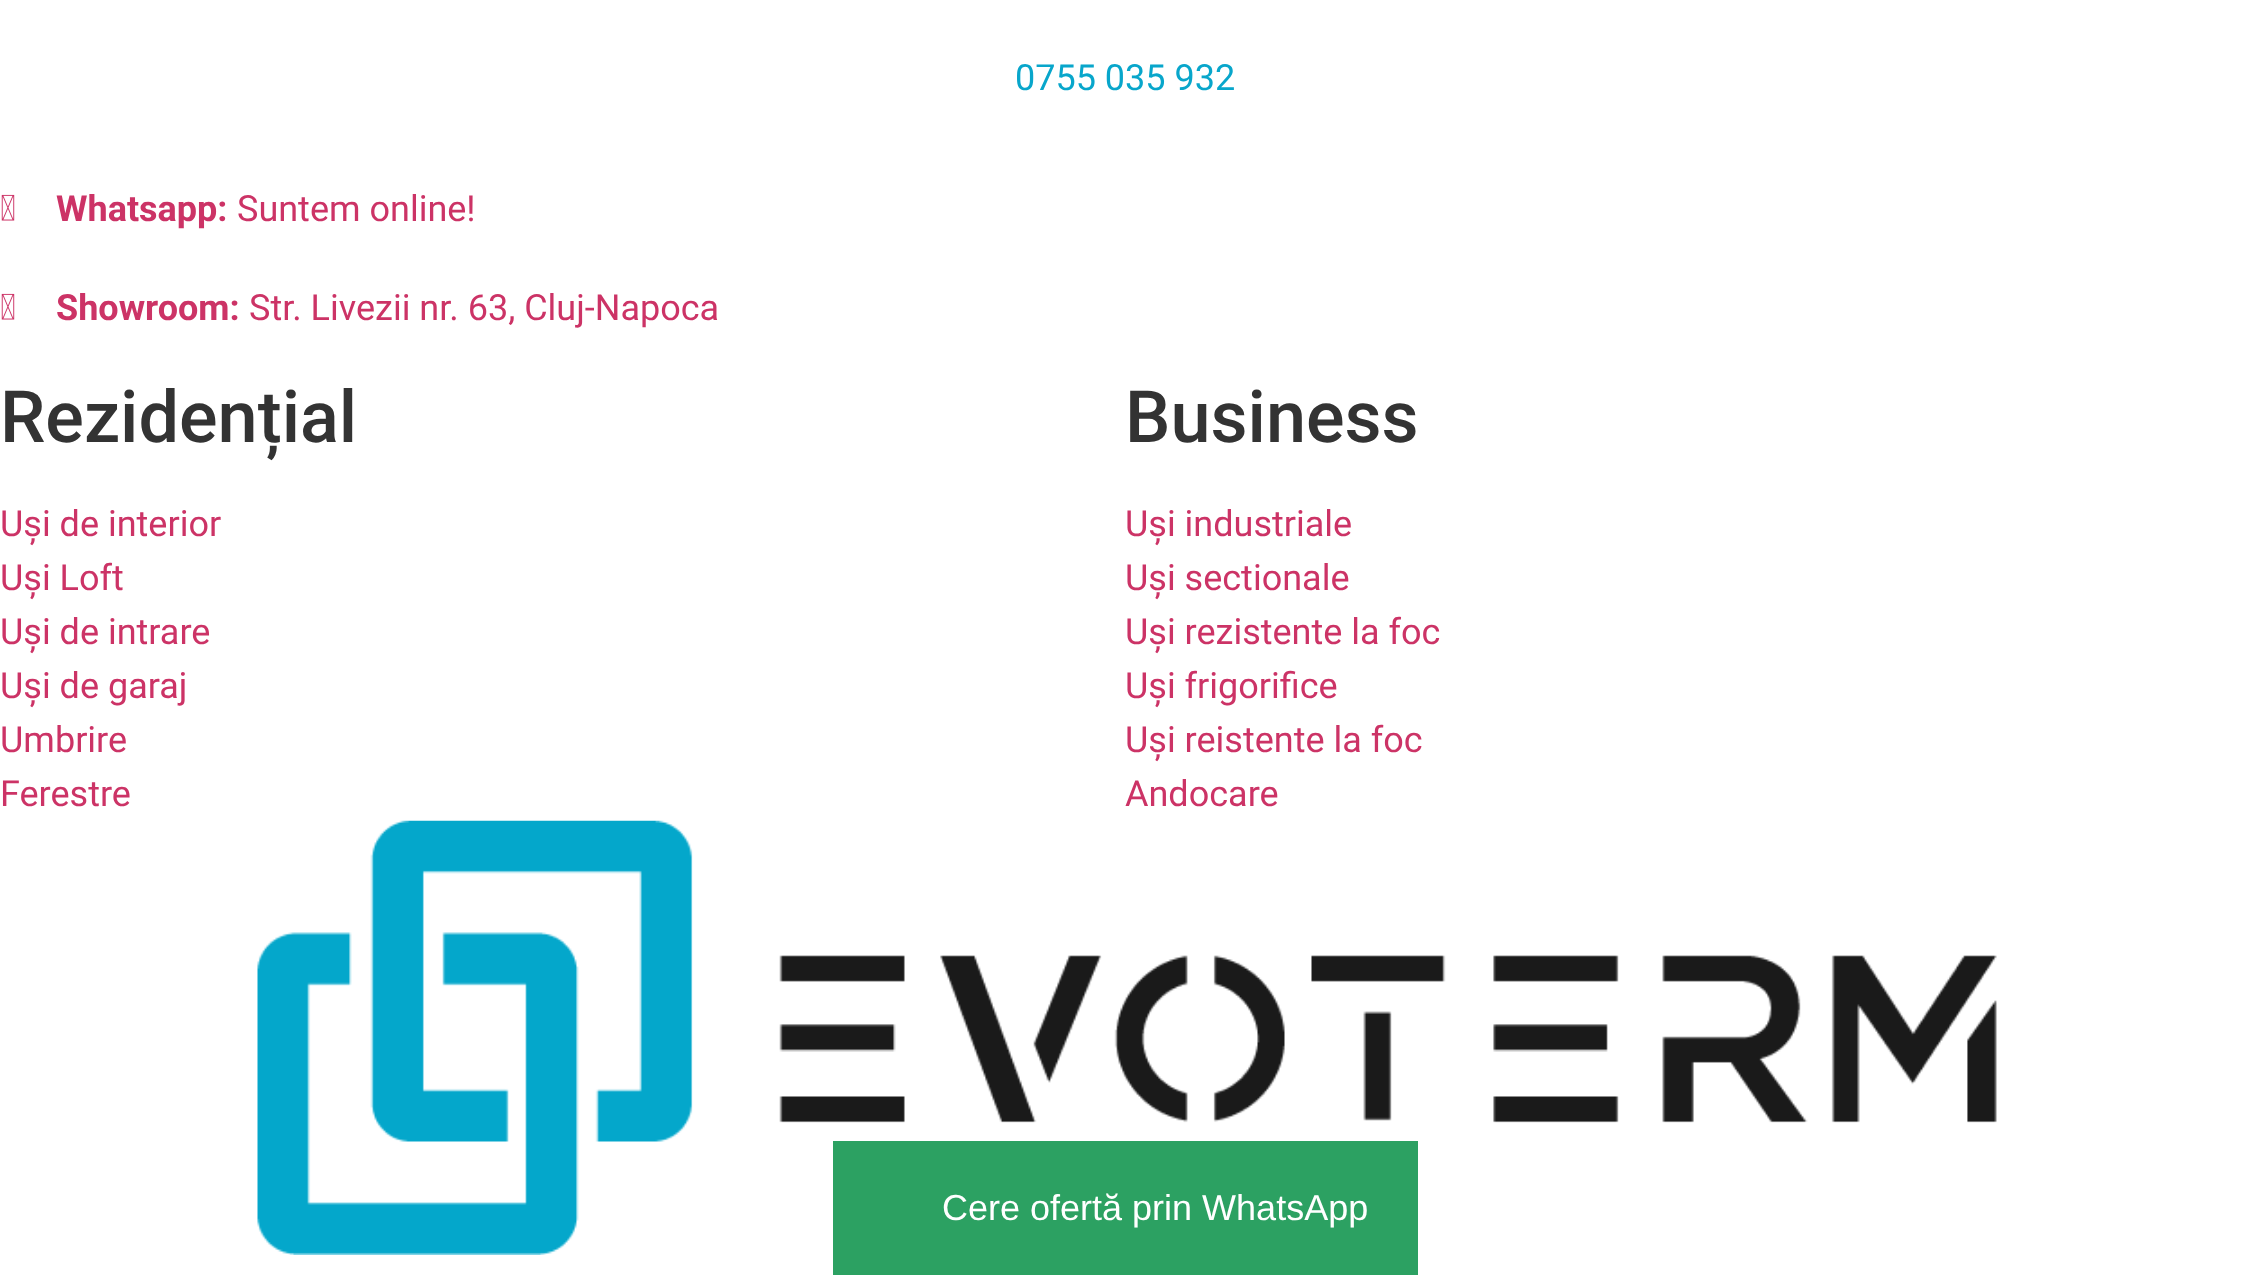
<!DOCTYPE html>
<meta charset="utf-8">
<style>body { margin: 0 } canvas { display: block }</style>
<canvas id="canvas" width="2249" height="1275"></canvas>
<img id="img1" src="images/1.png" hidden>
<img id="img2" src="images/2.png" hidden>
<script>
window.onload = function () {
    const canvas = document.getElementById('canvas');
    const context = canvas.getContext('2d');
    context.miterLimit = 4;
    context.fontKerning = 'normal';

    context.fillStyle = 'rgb(255, 255, 255)';
    context.fillRect(0, 0, 2249, 1275);
    context.drawImage(document.getElementById('img1'), 1, 194, 14, 27);
    context.drawImage(document.getElementById('img1'), 1, 293, 14, 27);
    context.drawImage(document.getElementById('img2'), 257, 820, 1740, 435);
    context.fillStyle = 'rgb(44, 161, 98)';
    context.fillRect(833, 1141, 585, 134);
    context.font = '36px Roboto';
    context.fillStyle = 'rgb(8, 166, 203)';
    context.fillText('0755 035 932', 1015, 90);
    context.font = 'bold 36px Roboto';
    context.fillStyle = 'rgb(204, 51, 102)';
    context.fillText('Whatsapp:', 56, 221);
    context.font = '36px Roboto';
    context.fillText('Suntem online!', 237, 221);
    context.font = 'bold 36px Roboto';
    context.fillText('Showroom:', 56, 320);
    context.font = '36px Roboto';
    context.fillText('Str. Livezii nr. 63, Cluj-Napoca', 249, 320);
    context.font = '500 72px Roboto';
    context.fillStyle = 'rgb(51, 51, 51)';
    context.fillText('Rezidențial', 0, 442);
    context.font = '36px Roboto';
    context.fillStyle = 'rgb(204, 51, 102)';
    context.fillText('Uși de interior', 0, 536);
    context.fillText('Uși Loft', 0, 590);
    context.fillText('Uși de intrare', 0, 644);
    context.fillText('Uși de garaj', 0, 698);
    context.fillText('Umbrire', 0, 752);
    context.fillText('Ferestre', 0, 806);
    context.font = '500 72px Roboto';
    context.fillStyle = 'rgb(51, 51, 51)';
    context.fillText('Business', 1125, 442);
    context.font = '36px Roboto';
    context.fillStyle = 'rgb(204, 51, 102)';
    context.fillText('Uși industriale', 1125, 536);
    context.fillText('Uși sectionale', 1125, 590);
    context.fillText('Uși rezistente la foc', 1125, 644);
    context.fillText('Uși frigorifice', 1125, 698);
    context.fillText('Uși reistente la foc', 1125, 752);
    context.fillText('Andocare', 1125, 806);
    context.font = '36px Liberation Sans';
    context.fillStyle = 'rgb(255, 255, 255)';
    context.fillText('Cere ofertă prin WhatsApp', 942, 1220);
};
</script>
